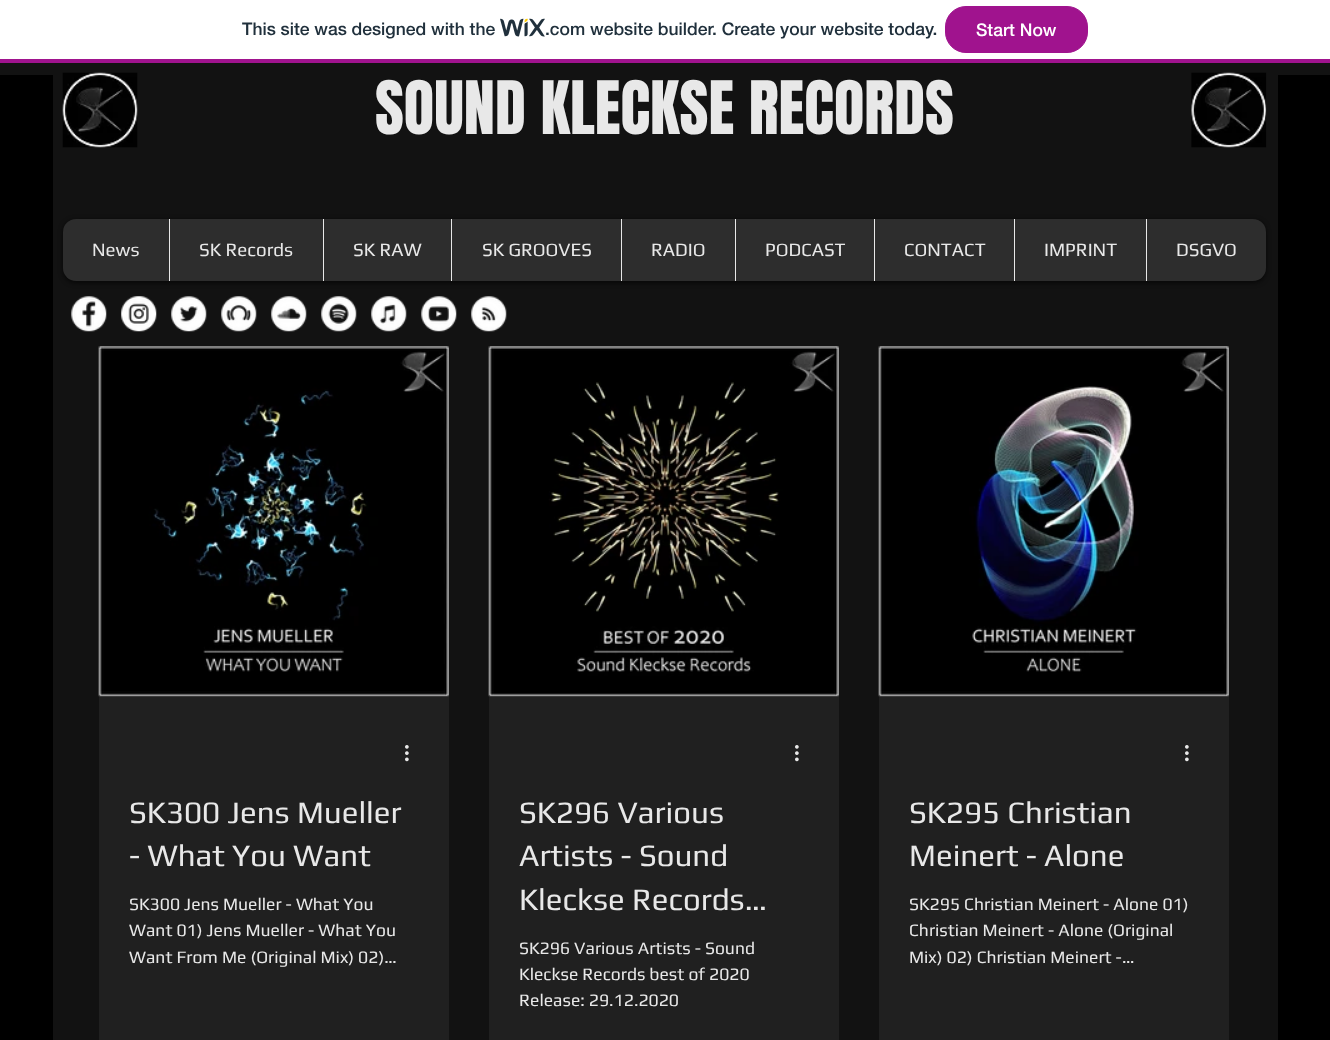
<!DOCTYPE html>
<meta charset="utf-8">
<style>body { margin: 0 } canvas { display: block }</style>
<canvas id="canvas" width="1330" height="1040"></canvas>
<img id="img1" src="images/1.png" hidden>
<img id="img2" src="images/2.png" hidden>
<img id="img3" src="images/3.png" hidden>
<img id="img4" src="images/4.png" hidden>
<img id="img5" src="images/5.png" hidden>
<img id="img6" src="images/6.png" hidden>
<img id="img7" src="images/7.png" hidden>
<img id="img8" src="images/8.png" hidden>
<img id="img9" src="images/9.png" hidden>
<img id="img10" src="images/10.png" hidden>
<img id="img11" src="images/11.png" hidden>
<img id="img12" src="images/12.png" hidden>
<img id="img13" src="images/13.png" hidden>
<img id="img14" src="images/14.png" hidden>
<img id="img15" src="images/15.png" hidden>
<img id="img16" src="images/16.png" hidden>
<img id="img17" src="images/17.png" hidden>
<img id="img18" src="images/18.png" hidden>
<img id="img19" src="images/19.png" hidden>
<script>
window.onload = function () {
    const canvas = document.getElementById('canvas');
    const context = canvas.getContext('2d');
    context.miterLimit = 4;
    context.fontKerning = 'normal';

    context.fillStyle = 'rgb(255, 255, 255)';
    context.fillRect(0, 0, 1330, 1040);
    context.fillStyle = 'rgb(160, 19, 142)';
    context.fillRect(0, 59, 1330, 4);
    context.drawImage(document.getElementById('img1'), 500, 18, 45, 19);
    context.beginPath();
    context.roundRect(945.5, 6.5, 142, 46, 20.5);
    context.fill();
    context.strokeStyle = 'rgb(160, 19, 142)';
    context.stroke();
    context.fillStyle = 'rgb(0, 0, 0)';
    context.fillRect(0, 75, 1330, 965);
    context.fillStyle = 'rgb(18, 18, 18)';
    context.fillRect(0, 63, 1330, 12);
    context.fillRect(53, 75, 1225, 965);
    context.drawImage(document.getElementById('img2'), 62, 72, 76, 76);
    context.drawImage(document.getElementById('img3'), 1191, 72, 76, 76);
    context.fillStyle = 'rgba(0, 0, 0, 0.6)';
    context.filter = 'blur(2.5px)';
    context.beginPath();
    context.roundRect(63, 220, 1203, 63, 13);
    context.fill();
    context.filter = 'none';
    context.fillStyle = 'rgb(45, 45, 45)';
    context.beginPath();
    context.roundRect(63, 219, 1203, 62, 13);
    context.fill();
    context.fillStyle = 'rgb(232, 232, 232)';
    context.fillRect(169, 219, 1, 62);
    context.fillRect(323, 219, 1, 62);
    context.fillRect(451, 219, 1, 62);
    context.fillRect(621, 219, 1, 62);
    context.fillRect(735, 219, 1, 62);
    context.fillRect(874, 219, 1, 62);
    context.fillRect(1014, 219, 1, 62);
    context.fillRect(1146, 219, 1, 62);
    context.drawImage(document.getElementById('img4'), 71, 296, 36, 36);
    context.drawImage(document.getElementById('img5'), 121, 296, 36, 36);
    context.drawImage(document.getElementById('img6'), 171, 296, 36, 36);
    context.drawImage(document.getElementById('img7'), 221, 296, 36, 36);
    context.drawImage(document.getElementById('img8'), 271, 296, 36, 36);
    context.drawImage(document.getElementById('img9'), 321, 296, 36, 36);
    context.drawImage(document.getElementById('img10'), 371, 296, 36, 36);
    context.drawImage(document.getElementById('img11'), 421, 296, 36, 36);
    context.drawImage(document.getElementById('img12'), 471, 296, 36, 36);
    context.drawImage(document.getElementById('img13'), 98, 346, 351, 351);
    context.drawImage(document.getElementById('img14'), 98, 346, 351, 351);
    context.fillStyle = 'rgba(45, 45, 45, 0.5)';
    context.fillRect(99, 696, 350, 344);
    context.drawImage(document.getElementById('img15'), 405, 745, 4, 17);
    context.drawImage(document.getElementById('img16'), 488, 346, 351, 351);
    context.drawImage(document.getElementById('img17'), 488, 346, 351, 351);
    context.fillRect(489, 696, 350, 344);
    context.drawImage(document.getElementById('img15'), 795, 745, 4, 17);
    context.drawImage(document.getElementById('img18'), 878, 346, 351, 351);
    context.drawImage(document.getElementById('img19'), 878, 346, 351, 351);
    context.fillRect(879, 696, 350, 344);
    context.drawImage(document.getElementById('img15'), 1185, 745, 4, 17);
    context.font = '500 17.5px "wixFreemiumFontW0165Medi"';
    context.fillStyle = 'rgb(32, 48, 60)';
    context.fillText('This site was designed with the', 242, 35);
    context.fillText('.com website builder. Create your website today.', 545, 35);
    context.fillStyle = 'rgb(255, 255, 255)';
    context.fillText('Start Now', 976, 36);
    context.font = '62.5px Anton';
    context.fillStyle = 'rgb(232, 232, 232)';
    context.fillText('SOUND KLECKSE RECORDS', 375, 134);
    context.font = '18.75px Play';
    context.fillText('News', 92, 256);
    context.fillText('SK Records', 199, 256);
    context.fillText('SK RAW', 353, 256);
    context.fillText('SK GROOVES', 482, 256);
    context.fillText('RADIO', 651, 256);
    context.fillText('PODCAST', 765, 256);
    context.fillText('CONTACT', 904, 256);
    context.fillText('IMPRINT', 1044, 256);
    context.fillText('DSGVO', 1176, 256);
    context.font = '31.25px Play';
    context.fillText('SK300 Jens Mueller', 129, 823);
    context.fillText('- What You Want', 129, 866);
    context.font = '17.5px Play';
    context.fillText('SK300 Jens Mueller - What You', 129, 910);
    context.fillText('Want 01) Jens Mueller - What You', 129, 936);
    context.fillText('Want From Me (Original Mix) 02)…', 129, 963);
    context.font = '31.25px Play';
    context.fillText('SK296 Various', 519, 823);
    context.fillText('Artists - Sound', 519, 866);
    context.fillText('Kleckse Records…', 519, 910);
    context.font = '17.5px Play';
    context.fillText('SK296 Various Artists - Sound', 519, 954);
    context.fillText('Kleckse Records best of 2020', 519, 980);
    context.fillText('Release: 29.12.2020', 519, 1006);
    context.font = '31.25px Play';
    context.fillText('SK295 Christian', 909, 823);
    context.fillText('Meinert - Alone', 909, 866);
    context.font = '17.5px Play';
    context.fillText('SK295 Christian Meinert - Alone 01)', 909, 910);
    context.fillText('Christian Meinert - Alone (Original', 909, 936);
    context.fillText('Mix) 02) Christian Meinert -…', 909, 963);
};
</script>
